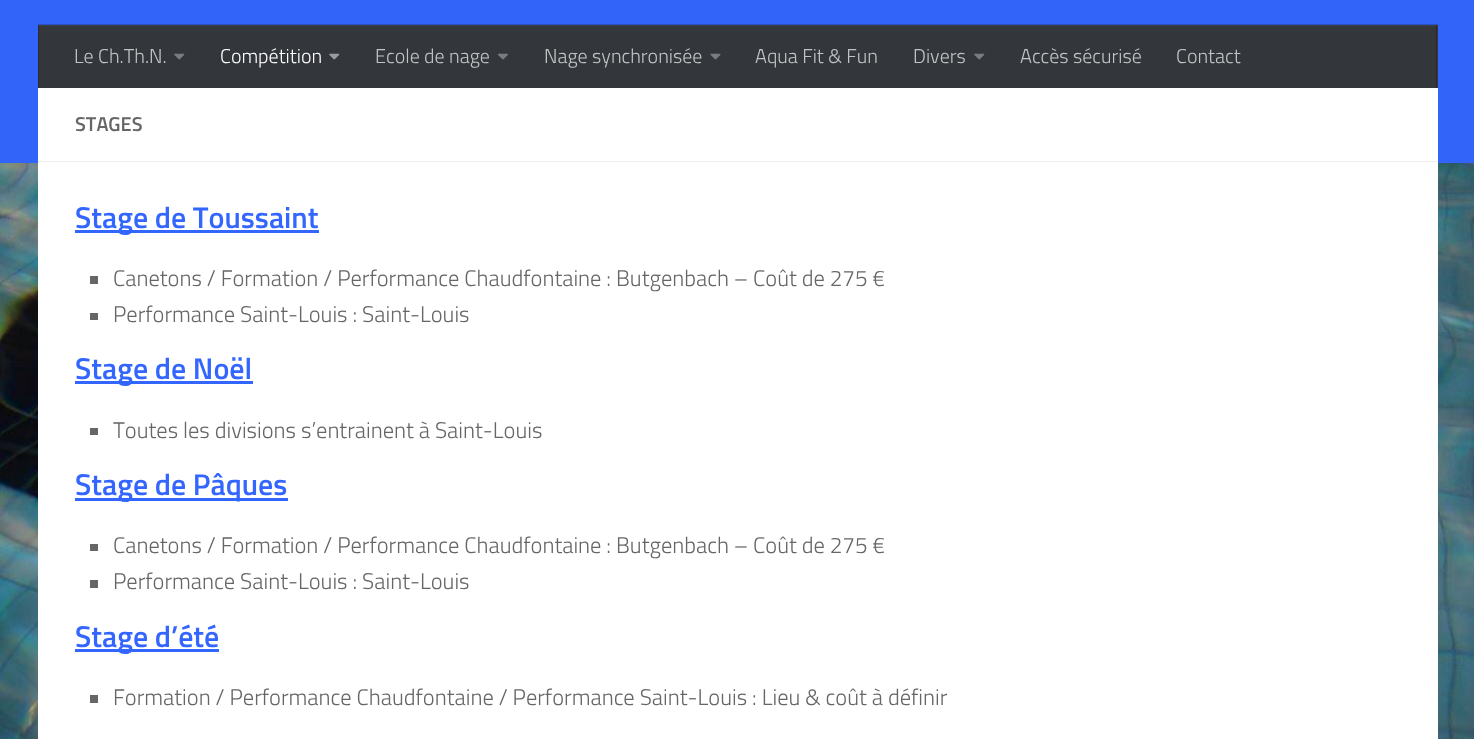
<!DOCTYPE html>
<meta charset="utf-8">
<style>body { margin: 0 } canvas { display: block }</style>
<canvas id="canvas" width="1474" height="739"></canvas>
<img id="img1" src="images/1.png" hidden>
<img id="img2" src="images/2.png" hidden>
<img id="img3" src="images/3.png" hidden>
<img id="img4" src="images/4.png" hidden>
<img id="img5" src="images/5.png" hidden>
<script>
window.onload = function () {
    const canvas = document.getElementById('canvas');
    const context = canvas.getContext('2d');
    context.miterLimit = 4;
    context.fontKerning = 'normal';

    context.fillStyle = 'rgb(255, 255, 255)';
    context.fillRect(0, 0, 1474, 739);
    context.drawImage(document.getElementById('img1'), 0, 163, 1474, 576);
    context.fillStyle = 'rgb(50, 100, 250)';
    context.fillRect(0, 0, 1474, 163);
    context.fillStyle = 'rgb(40, 80, 200)';
    context.beginPath();
    context.moveTo(38, 24);
    context.lineTo(38, 25);
    context.lineTo(1438, 25);
    context.lineTo(1438, 86);
    context.lineTo(1438, 24);
    context.closePath();
    context.fill();
    context.fillStyle = 'rgb(51, 54, 59)';
    context.fillRect(39, 25, 1399, 63);
    context.fillStyle = 'rgb(41, 43, 47)';
    context.fillRect(1436, 25, 1, 63);
    context.fillRect(38, 25, 1, 63);
    context.fillStyle = 'rgba(255, 255, 255, 0.05)';
    context.fillRect(38, 25, 1400, 1);
    context.drawImage(document.getElementById('img2'), 174, 53, 11, 7);
    context.drawImage(document.getElementById('img3'), 329, 53, 11, 7);
    context.drawImage(document.getElementById('img4'), 498, 53, 10, 7);
    context.drawImage(document.getElementById('img5'), 710, 53, 11, 7);
    context.drawImage(document.getElementById('img2'), 974, 53, 11, 7);
    context.fillStyle = 'rgb(255, 255, 255)';
    context.fillRect(38, 88, 1400, 651);
    context.fillStyle = 'rgb(238, 238, 238)';
    context.fillRect(38, 161, 1400, 1);
    context.fillStyle = 'rgb(51, 102, 255)';
    context.fillRect(75, 230, 244, 3);
    context.fillStyle = 'rgb(102, 102, 102)';
    context.fillRect(90, 276, 8, 8);
    context.fillRect(90, 313, 8, 7);
    context.fillStyle = 'rgb(51, 102, 255)';
    context.fillRect(75, 381, 178, 3);
    context.fillStyle = 'rgb(102, 102, 102)';
    context.fillRect(90, 428, 8, 7);
    context.fillStyle = 'rgb(51, 102, 255)';
    context.fillRect(75, 498, 213, 3);
    context.fillStyle = 'rgb(102, 102, 102)';
    context.fillRect(90, 544, 8, 7);
    context.fillRect(90, 580, 8, 8);
    context.fillStyle = 'rgb(51, 102, 255)';
    context.fillRect(75, 649, 144, 3);
    context.fillStyle = 'rgb(102, 102, 102)';
    context.fillRect(90, 695, 8, 8);
    context.font = '300 20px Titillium';
    context.fillStyle = 'rgb(194, 195, 196)';
    context.fillText('Le Ch.Th.N.', 74, 63);
    context.fillStyle = 'rgb(255, 255, 255)';
    context.fillText('Compétition', 220, 63);
    context.fillStyle = 'rgb(194, 195, 196)';
    context.fillText('Ecole de nage', 375, 63);
    context.fillText('Nage synchronisée', 544, 63);
    context.fillText('Aqua Fit & Fun', 755, 63);
    context.fillText('Divers', 913, 63);
    context.fillText('Accès sécurisé', 1020, 63);
    context.fillText('Contact', 1176, 63);
    context.font = '600 20px Titillium';
    context.fillStyle = 'rgb(102, 102, 102)';
    context.fillText('STAGES', 75, 131);
    context.font = '600 30px Titillium';
    context.fillStyle = 'rgb(51, 102, 255)';
    context.fillText('Stage de Toussaint', 75, 228);
    context.font = '300 22.5px Titillium';
    context.fillStyle = 'rgb(102, 102, 102)';
    context.fillText('Canetons / Formation / Performance Chaudfontaine : Butgenbach – Coût de 275 €', 113, 286);
    context.fillText('Performance Saint-Louis : Saint-Louis', 113, 322);
    context.font = '600 30px Titillium';
    context.fillStyle = 'rgb(51, 102, 255)';
    context.fillText('Stage de Noël', 75, 379);
    context.font = '300 22.5px Titillium';
    context.fillStyle = 'rgb(102, 102, 102)';
    context.fillText('Toutes les divisions s’entrainent à Saint-Louis', 113, 438);
    context.font = '600 30px Titillium';
    context.fillStyle = 'rgb(51, 102, 255)';
    context.fillText('Stage de Pâques', 75, 495);
    context.font = '300 22.5px Titillium';
    context.fillStyle = 'rgb(102, 102, 102)';
    context.fillText('Canetons / Formation / Performance Chaudfontaine : Butgenbach – Coût de 275 €', 113, 553);
    context.fillText('Performance Saint-Louis : Saint-Louis', 113, 589);
    context.font = '600 30px Titillium';
    context.fillStyle = 'rgb(51, 102, 255)';
    context.fillText('Stage d’été', 75, 647);
    context.font = '300 22.5px Titillium';
    context.fillStyle = 'rgb(102, 102, 102)';
    context.fillText('Formation / Performance Chaudfontaine / Performance Saint-Louis : Lieu & coût à définir', 113, 705);
};
</script>
